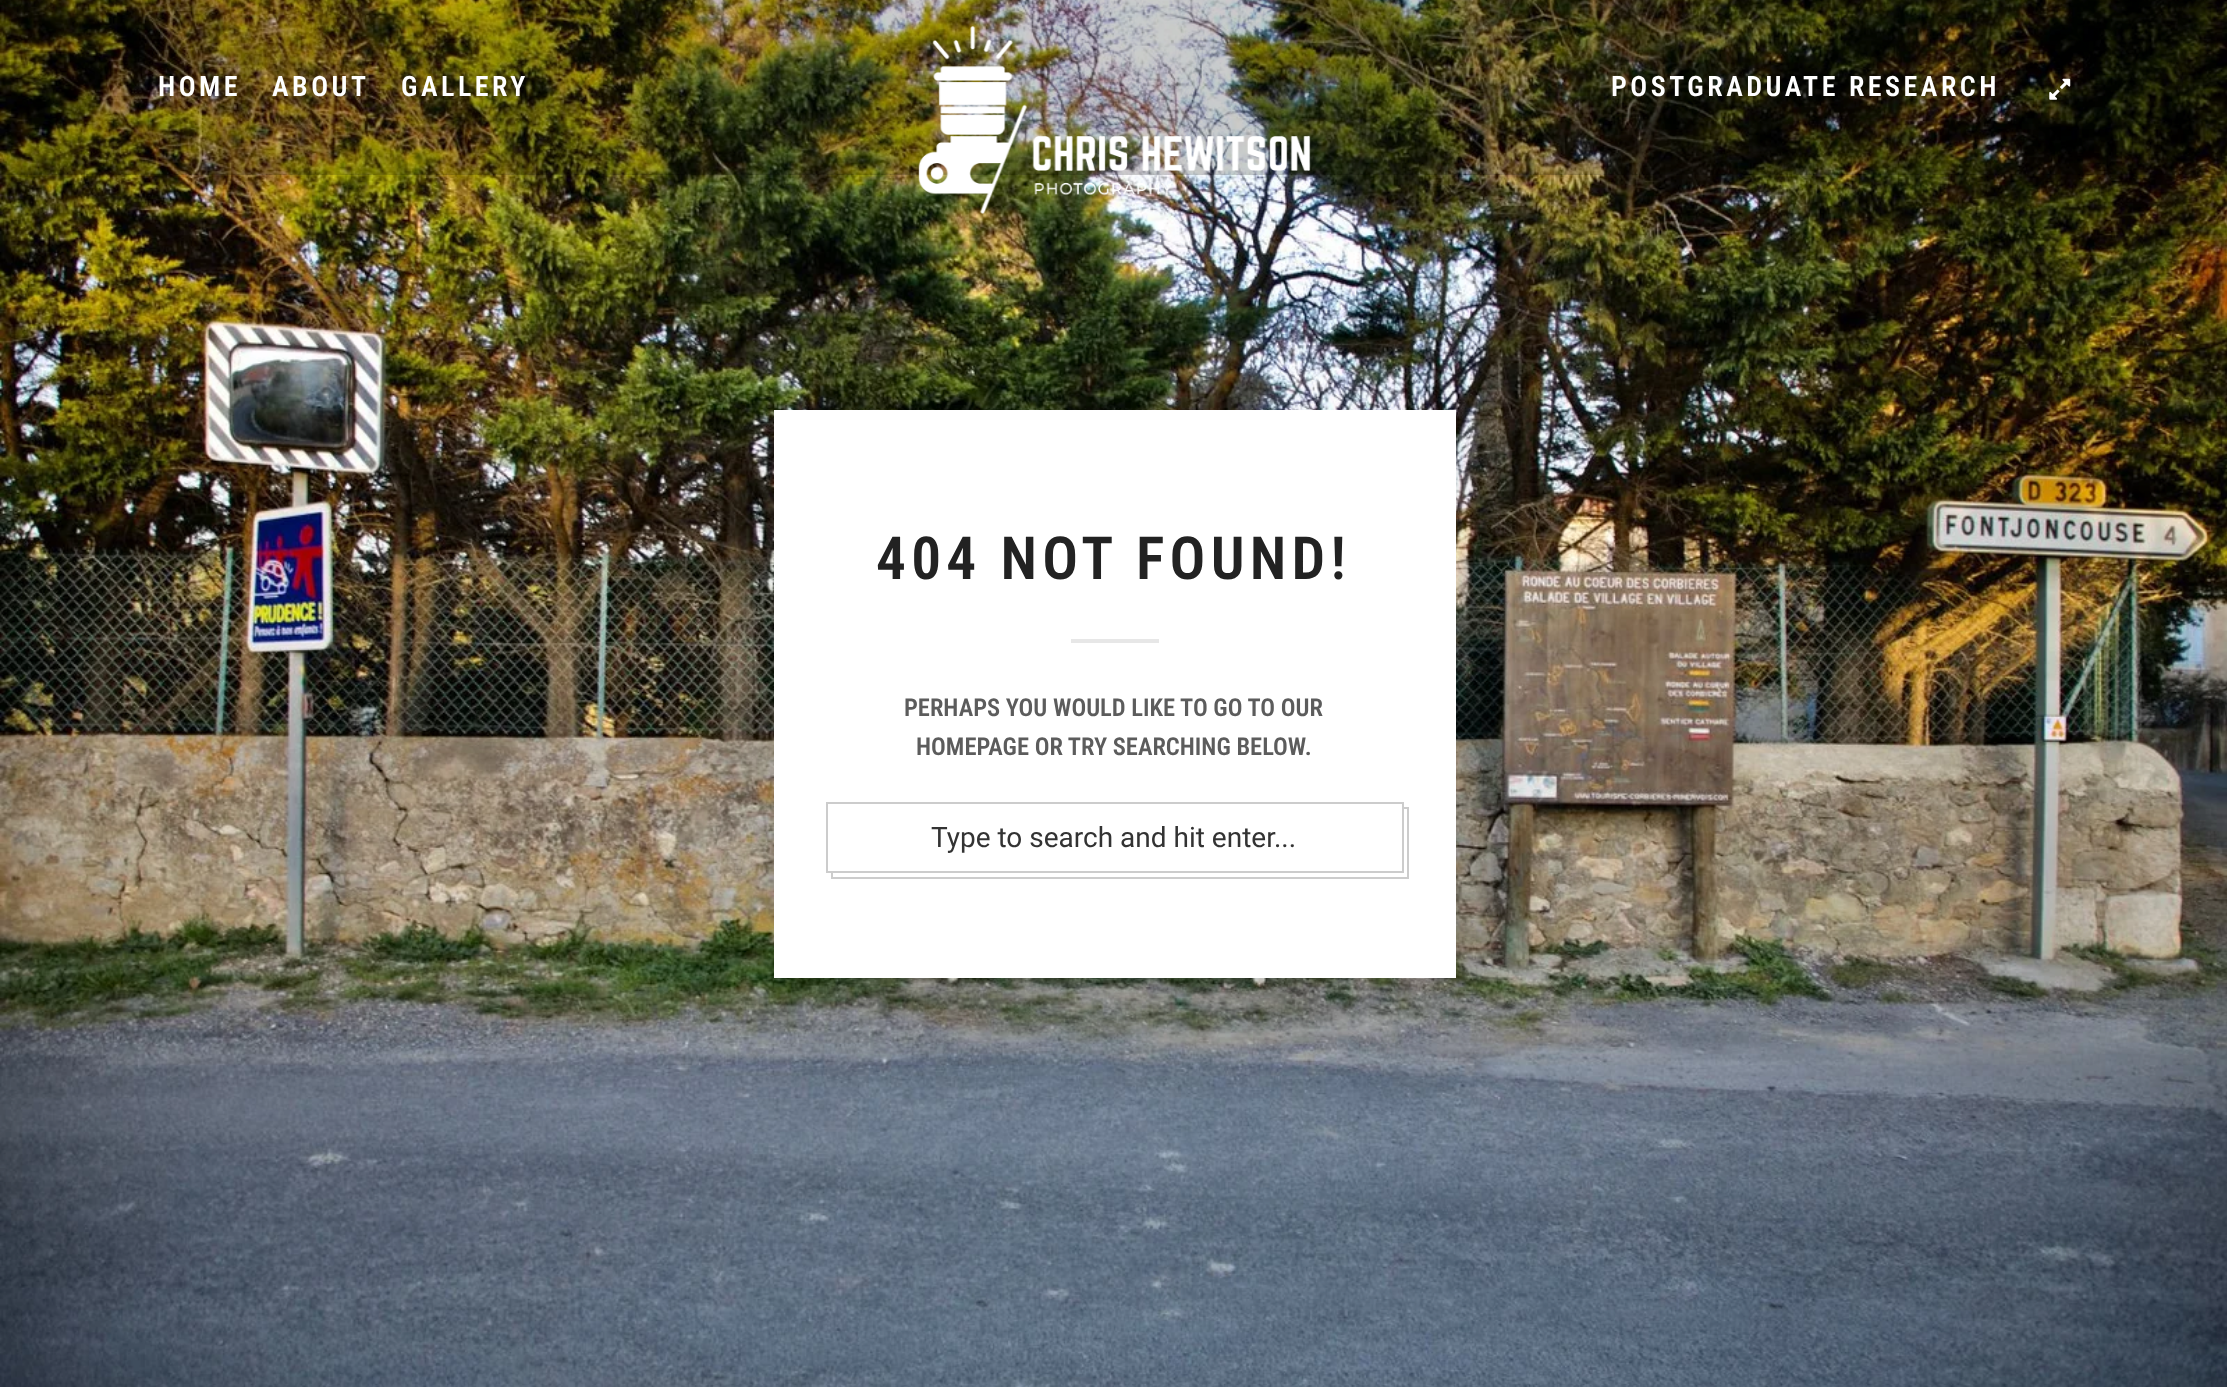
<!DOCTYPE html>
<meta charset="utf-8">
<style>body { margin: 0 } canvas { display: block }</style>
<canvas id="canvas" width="2227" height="1387"></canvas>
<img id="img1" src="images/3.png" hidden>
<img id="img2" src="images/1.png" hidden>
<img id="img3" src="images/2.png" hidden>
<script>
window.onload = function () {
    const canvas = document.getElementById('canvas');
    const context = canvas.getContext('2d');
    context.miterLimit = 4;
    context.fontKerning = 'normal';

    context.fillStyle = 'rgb(255, 255, 255)';
    context.fillRect(0, 0, 2227, 1387);
    context.drawImage(document.getElementById('img1'), 0, 0, 2227, 1387);
    context.fillStyle = 'rgba(0, 0, 0, 0.2)';
    context.fillRect(0, 0, 2227, 175);
    context.drawImage(document.getElementById('img2'), 918, 26, 393, 188);
    context.drawImage(document.getElementById('img3'), 2049, 78, 22, 22);
    context.fillStyle = 'rgba(0, 0, 0, 0.15)';
    context.filter = 'blur(35px)';
    context.beginPath();
    context.rect(774, 448, 682, 569);
    context.fill();
    context.filter = 'none';
    context.fillStyle = 'rgb(255, 255, 255)';
    context.fillRect(774, 410, 682, 568);
    context.fillStyle = 'rgb(231, 231, 231)';
    context.fillRect(1071, 639, 88, 4);
    context.fillStyle = 'rgb(204, 204, 204)';
    context.beginPath();
    context.moveTo(831, 873);
    context.lineTo(831, 879);
    context.lineTo(1409, 879);
    context.lineTo(1409, 807);
    context.lineTo(1404, 807);
    context.lineTo(1404, 873);
    context.closePath();
    context.fill();
    context.fillStyle = 'rgb(255, 255, 255)';
    context.beginPath();
    context.moveTo(833, 873);
    context.lineTo(833, 877);
    context.lineTo(1407, 877);
    context.lineTo(1407, 809);
    context.lineTo(1404, 809);
    context.lineTo(1404, 873);
    context.closePath();
    context.fill();
    context.strokeStyle = 'rgb(204, 204, 204)';
    context.lineWidth = 2;
    context.strokeRect(827, 803, 576, 69);
    context.letterSpacing = '3.5px';
    context.font = '600 28px Roboto Condensed';
    context.fillText('HOME', 158, 96);
    context.fillText('ABOUT', 272, 96);
    context.fillText('GALLERY', 401, 96);
    context.fillText('POSTGRADUATE RESEARCH', 1611, 96);
    context.letterSpacing = '5.25px';
    context.font = '600 59.5px Roboto Condensed';
    context.fillStyle = 'rgb(34, 34, 34)';
    context.fillText('404 NOT FOUND!', 876, 579);
    context.letterSpacing = '0px';
    context.font = '600 24.5px Roboto Condensed';
    context.fillStyle = 'rgb(92, 92, 92)';
    context.fillText('PERHAPS YOU WOULD LIKE TO GO TO OUR', 904, 716);
    context.fillText('HOMEPAGE OR TRY SEARCHING BELOW.', 916, 755);
    context.font = '28px Roboto';
    context.fillStyle = 'rgb(51, 51, 51)';
    context.fillText('Type to search and hit enter...', 931, 847);
};
</script>
